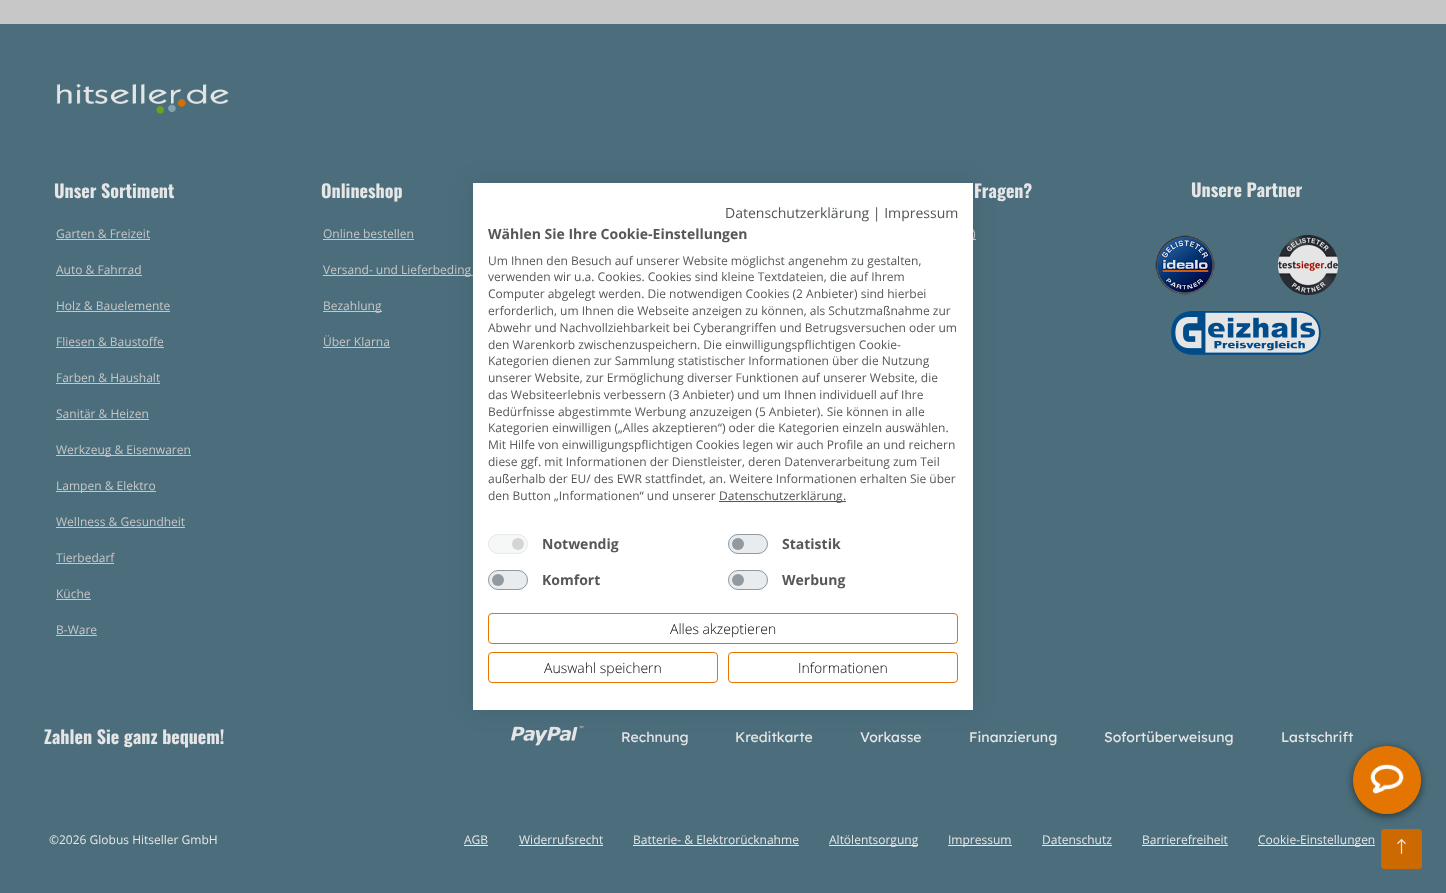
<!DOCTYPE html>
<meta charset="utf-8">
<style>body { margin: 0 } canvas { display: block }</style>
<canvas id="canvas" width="1446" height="893"></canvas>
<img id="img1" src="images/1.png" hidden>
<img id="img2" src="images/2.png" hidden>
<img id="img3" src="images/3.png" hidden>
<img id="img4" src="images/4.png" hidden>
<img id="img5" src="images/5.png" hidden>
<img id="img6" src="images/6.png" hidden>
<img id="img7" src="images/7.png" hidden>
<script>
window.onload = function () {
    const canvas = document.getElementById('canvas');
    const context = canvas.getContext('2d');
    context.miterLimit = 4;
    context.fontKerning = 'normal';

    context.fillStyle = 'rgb(76, 110, 124)';
    context.fillRect(0, 0, 1446, 893);
    context.fillStyle = 'rgb(199, 199, 199)';
    context.fillRect(0, 0, 1446, 24);
    context.drawImage(document.getElementById('img1'), 56, 83, 173, 31);
    context.fillRect(56, 239, 94, 1);
    context.fillRect(56, 275, 86, 1);
    context.fillRect(56, 311, 114, 1);
    context.fillRect(56, 347, 108, 1);
    context.fillRect(56, 383, 104, 1);
    context.fillRect(56, 419, 93, 1);
    context.fillRect(56, 455, 135, 1);
    context.fillRect(56, 491, 100, 1);
    context.fillRect(56, 527, 129, 1);
    context.fillRect(56, 563, 58, 1);
    context.fillRect(56, 599, 35, 1);
    context.fillRect(56, 635, 41, 1);
    context.fillRect(323, 239, 91, 1);
    context.fillRect(323, 275, 150, 1);
    context.fillRect(323, 311, 59, 1);
    context.fillRect(323, 347, 67, 1);
    context.fillRect(973, 239, 3, 1);
    context.drawImage(document.getElementById('img2'), 1155, 235, 60, 60);
    context.drawImage(document.getElementById('img3'), 1278, 235, 60, 60);
    context.drawImage(document.getElementById('img4'), 1171, 311, 150, 44);
    context.drawImage(document.getElementById('img5'), 511, 725, 73, 21);
    context.fillStyle = 'rgb(230, 230, 230)';
    context.fillRect(464, 845, 24, 1);
    context.fillRect(519, 845, 84, 1);
    context.fillRect(633, 845, 166, 1);
    context.fillRect(829, 845, 89, 1);
    context.fillRect(948, 845, 64, 1);
    context.fillRect(1042, 845, 70, 1);
    context.fillRect(1142, 845, 86, 1);
    context.fillRect(1258, 845, 117, 1);
    context.fillStyle = 'rgba(0, 0, 0, 0.1)';
    context.filter = 'blur(12px)';
    context.beginPath();
    context.rect(473, 183, 500, 527);
    context.fill();
    context.filter = 'none';
    context.fillStyle = 'rgba(0, 0, 0, 0.55)';
    context.filter = 'blur(4px)';
    context.beginPath();
    context.roundRect(1353, 748, 68, 68, 34);
    context.fill();
    context.filter = 'none';
    context.fillStyle = 'rgb(227, 117, 0)';
    context.beginPath();
    context.arc(1387, 780, 34, 0, 2 * Math.PI);
    context.fill();
    context.drawImage(document.getElementById('img6'), 1353, 746, 68, 68);
    context.fillStyle = 'rgb(204, 105, 0)';
    context.beginPath();
    context.roundRect(1381.5, 829.5, 40, 39, 2.5);
    context.fill();
    context.strokeStyle = 'rgb(204, 105, 0)';
    context.stroke();
    context.drawImage(document.getElementById('img7'), 1397, 839, 9, 15);
    context.font = 'bold 18px Oswald';
    context.fillStyle = 'rgb(230, 230, 230)';
    context.fillText('Unser Sortiment', 54, 198);
    context.font = '12px Open Sans';
    context.fillStyle = 'rgb(199, 199, 199)';
    context.fillText('Garten & Freizeit', 56, 238);
    context.fillText('Auto & Fahrrad', 56, 274);
    context.fillText('Holz & Bauelemente', 56, 310);
    context.fillText('Fliesen & Baustoffe', 56, 346);
    context.fillText('Farben & Haushalt', 56, 382);
    context.fillText('Sanitär & Heizen', 56, 418);
    context.fillText('Werkzeug & Eisenwaren', 56, 454);
    context.fillText('Lampen & Elektro', 56, 490);
    context.fillText('Wellness & Gesundheit', 56, 526);
    context.fillText('Tierbedarf', 56, 562);
    context.fillText('Küche', 56, 598);
    context.fillText('B-Ware', 56, 634);
    context.font = 'bold 18px Oswald';
    context.fillStyle = 'rgb(230, 230, 230)';
    context.fillText('Onlineshop', 321, 198);
    context.font = '12px Open Sans';
    context.fillStyle = 'rgb(199, 199, 199)';
    context.fillText('Online bestellen', 323, 238);
    context.fillText('Versand- und Lieferbeding', 323, 274);
    context.fillText('Bezahlung', 323, 310);
    context.fillText('Über Klarna', 323, 346);
    context.font = 'bold 18px Oswald';
    context.fillStyle = 'rgb(230, 230, 230)';
    context.fillText('Fragen?', 974, 198);
    context.font = '12px Open Sans';
    context.fillStyle = 'rgb(199, 199, 199)';
    context.fillText(')', 972, 238);
    context.font = 'bold 18px Oswald';
    context.fillStyle = 'rgb(230, 230, 230)';
    context.fillText('Unsere Partner', 1191, 197);
    context.fillText('Zahlen Sie ganz bequem!', 44, 744);
    context.font = '14px Lexend';
    context.fillText('Rechnung', 621, 742);
    context.fillText('Kreditkarte', 735, 742);
    context.fillText('Vorkasse', 860, 742);
    context.fillText('Finanzierung', 969, 742);
    context.fillText('Sofortüberweisung', 1104, 742);
    context.fillText('Lastschrift', 1281, 742);
    context.font = '12px Open Sans';
    context.fillText('©2026 Globus Hitseller GmbH', 49, 844);
    context.fillText('AGB', 464, 844);
    context.fillText('Widerrufsrecht', 519, 844);
    context.fillText('Batterie- & Elektrorücknahme', 633, 844);
    context.fillText('Altölentsorgung', 829, 844);
    context.fillText('Impressum', 948, 844);
    context.fillText('Datenschutz', 1042, 844);
    context.fillText('Barrierefreiheit', 1142, 844);
    context.fillText('Cookie-Einstellungen', 1258, 844);
    context.fillStyle = 'rgb(255, 255, 255)';
    context.fillRect(473, 183, 500, 527);
    context.font = '14px Open Sans';
    context.fillStyle = 'rgb(80, 85, 85)';
    context.fillText('Datenschutzerklärung | Impressum', 725, 218);
    context.font = 'bold 14px Open Sans';
    context.fillStyle = 'rgb(87, 87, 87)';
    context.fillText('Wählen Sie Ihre Cookie-Einstellungen', 488, 239);
    context.font = '12px Open Sans';
    context.fillText('Um Ihnen den Besuch auf unserer Website möglichst angenehm zu gestalten,', 488, 265);
    context.fillText('verwenden wir u.a. Cookies. Cookies sind kleine Textdateien, die auf Ihrem', 488, 281);
    context.fillText('Computer abgelegt werden. Die notwendigen Cookies (2 Anbieter) sind hierbei', 488, 298);
    context.fillText('erforderlich, um Ihnen die Webseite anzeigen zu können, als Schutzmaßnahme zur', 488, 315);
    context.fillText('Abwehr und Nachvollziehbarkeit bei Cyberangriffen und Betrugsversuchen oder um', 488, 332);
    context.fillText('den Warenkorb zwischenzuspeichern. Die einwilligungspflichtigen Cookie-', 488, 349);
    context.fillText('Kategorien dienen zur Sammlung statistischer Informationen über die Nutzung', 488, 365);
    context.fillText('unserer Website, zur Ermöglichung diverser Funktionen auf unserer Website, die', 488, 382);
    context.fillText('das Websiteerlebnis verbessern (3 Anbieter) und um Ihnen individuell auf Ihre', 488, 399);
    context.fillText('Bedürfnisse abgestimmte Werbung anzuzeigen (5 Anbieter). Sie können in alle', 488, 416);
    context.fillText('Kategorien einwilligen („Alles akzeptieren“) oder die Kategorien einzeln auswählen.', 488, 432);
    context.fillText('Mit Hilfe von einwilligungspflichtigen Cookies legen wir auch Profile an und reichern', 488, 449);
    context.fillText('diese ggf. mit Informationen der Dienstleister, deren Datenverarbeitung zum Teil', 488, 466);
    context.fillText('außerhalb der EU/ des EWR stattfindet, an. Weitere Informationen erhalten Sie über', 488, 483);
    context.fillText('den Button „Informationen“ und unserer', 488, 500);
    context.fillText('.', 843, 500);
    context.fillRect(719, 501, 127, 1);
    context.fillStyle = 'rgb(80, 85, 85)';
    context.fillText('Datenschutzerklärung', 719, 500);
    context.fillStyle = 'rgb(246, 247, 247)';
    context.beginPath();
    context.roundRect(488, 534, 40, 20, 10);
    context.fill();
    context.fillStyle = 'rgb(211, 213, 213)';
    context.beginPath();
    context.arc(518, 544, 6, 0, 2 * Math.PI);
    context.fill();
    context.beginPath();
    context.roundRect(488.5, 534.5, 39, 19, 9.5);
    context.strokeStyle = 'rgb(233, 234, 234)';
    context.stroke();
    context.font = 'bold 14px Open Sans';
    context.fillStyle = 'rgb(87, 87, 87)';
    context.fillText('Notwendig', 542, 549);
    context.fillStyle = 'rgb(233, 236, 239)';
    context.beginPath();
    context.roundRect(728, 534, 40, 20, 10);
    context.fill();
    context.fillStyle = 'rgb(146, 153, 159)';
    context.beginPath();
    context.arc(738, 544, 6, 0, 2 * Math.PI);
    context.fill();
    context.beginPath();
    context.roundRect(728.5, 534.5, 39, 19, 9.5);
    context.strokeStyle = 'rgba(108, 117, 125, 0.7)';
    context.stroke();
    context.fillStyle = 'rgb(87, 87, 87)';
    context.fillText('Statistik', 782, 549);
    context.fillStyle = 'rgb(233, 236, 239)';
    context.beginPath();
    context.roundRect(488, 570, 40, 20, 10);
    context.fill();
    context.fillStyle = 'rgb(146, 153, 159)';
    context.beginPath();
    context.arc(498, 580, 6, 0, 2 * Math.PI);
    context.fill();
    context.beginPath();
    context.roundRect(488.5, 570.5, 39, 19, 9.5);
    context.stroke();
    context.fillStyle = 'rgb(87, 87, 87)';
    context.fillText('Komfort', 542, 585);
    context.fillStyle = 'rgb(233, 236, 239)';
    context.beginPath();
    context.roundRect(728, 570, 40, 20, 10);
    context.fill();
    context.fillStyle = 'rgb(146, 153, 159)';
    context.beginPath();
    context.arc(738, 580, 6, 0, 2 * Math.PI);
    context.fill();
    context.beginPath();
    context.roundRect(728.5, 570.5, 39, 19, 9.5);
    context.stroke();
    context.fillStyle = 'rgb(87, 87, 87)';
    context.fillText('Werbung', 782, 585);
    context.beginPath();
    context.roundRect(488.5, 613.5, 469, 30, 3.5);
    context.strokeStyle = 'rgb(227, 117, 0)';
    context.stroke();
    context.font = '300 14px Open Sans';
    context.fillStyle = 'rgb(0, 0, 0)';
    context.fillText('Alles akzeptieren', 670, 634);
    context.beginPath();
    context.roundRect(488.5, 652.5, 229, 30, 3.5);
    context.stroke();
    context.fillText('Auswahl speichern', 544, 673);
    context.beginPath();
    context.roundRect(728.5, 652.5, 229, 30, 3.5);
    context.stroke();
    context.fillText('Informationen', 798, 673);
};
</script>
